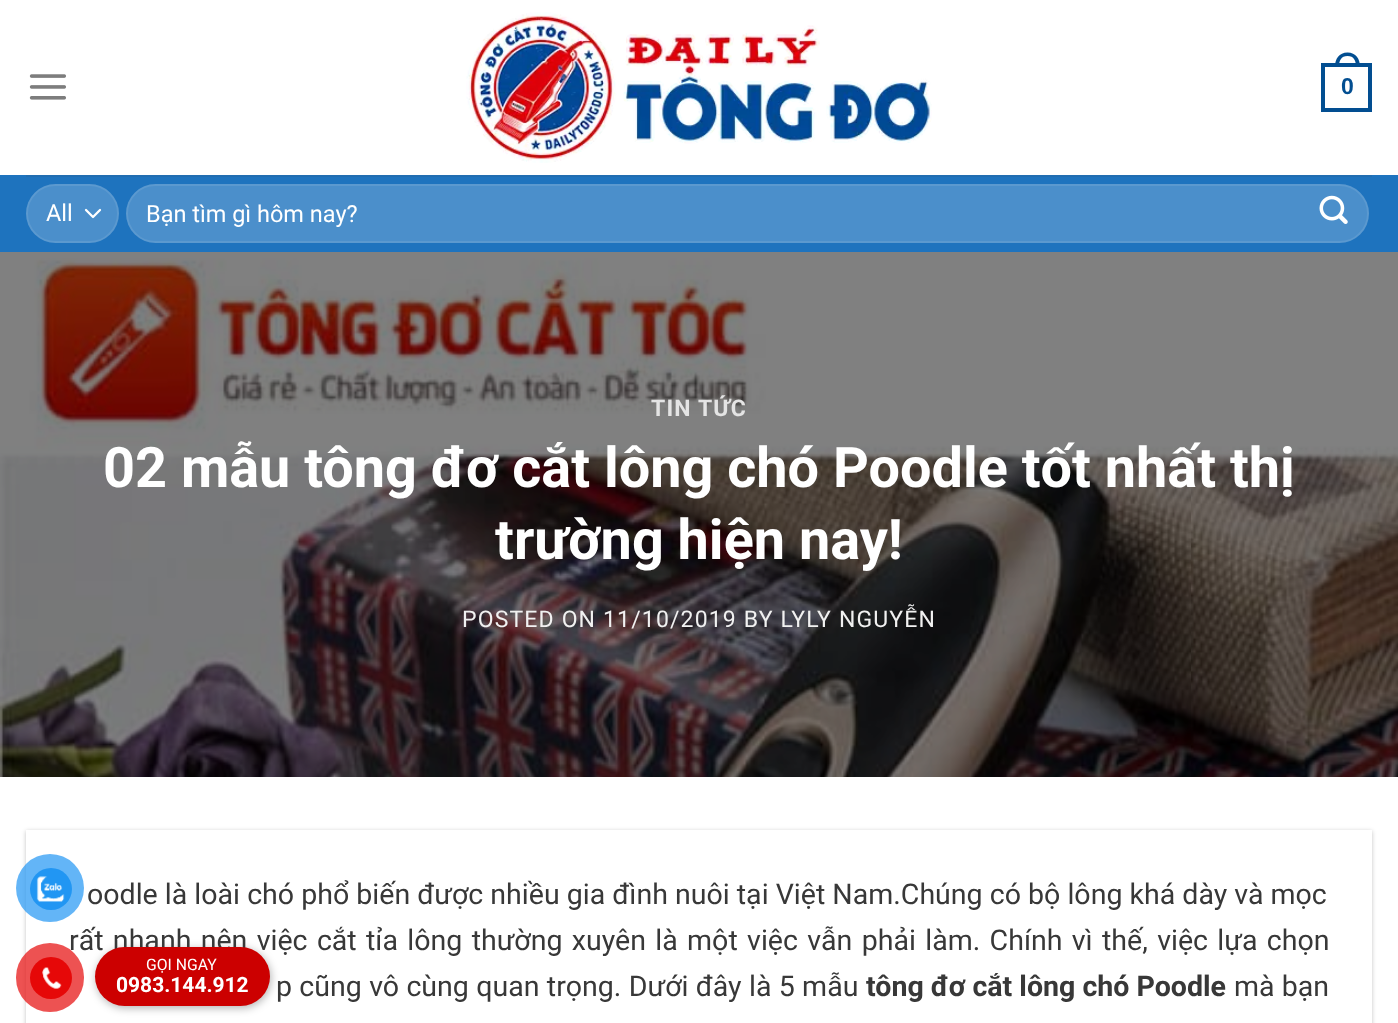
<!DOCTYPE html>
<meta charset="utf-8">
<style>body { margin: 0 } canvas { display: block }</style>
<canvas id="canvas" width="1398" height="1023"></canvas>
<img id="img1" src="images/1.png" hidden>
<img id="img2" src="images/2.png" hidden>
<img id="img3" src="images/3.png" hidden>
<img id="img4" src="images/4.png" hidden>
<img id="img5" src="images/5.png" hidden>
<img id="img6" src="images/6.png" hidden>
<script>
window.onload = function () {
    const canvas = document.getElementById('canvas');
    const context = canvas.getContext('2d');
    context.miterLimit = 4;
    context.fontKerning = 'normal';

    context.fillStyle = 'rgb(255, 255, 255)';
    context.fillRect(0, 0, 1398, 1023);
    context.drawImage(document.getElementById('img1'), 29, 74, 37, 26);
    context.drawImage(document.getElementById('img2'), 466, 12, 466, 151);
    context.strokeStyle = 'rgb(2, 78, 145)';
    context.lineWidth = 4;
    context.strokeRect(1323, 65, 47, 45);
    context.fillStyle = 'rgb(2, 78, 145)';
    context.beginPath();
    context.moveTo(1347.5, 52.5);
    context.bezierCurveTo(1356, 52.5, 1360, 59, 1360, 66.5);
    context.lineTo(1335, 66.5);
    context.bezierCurveTo(1335, 59, 1339, 52.5, 1347.5, 52.5);
    context.closePath();
    context.moveTo(1347.5, 56);
    context.bezierCurveTo(1354, 56, 1356, 61, 1356, 66.5);
    context.lineTo(1339, 66.5);
    context.bezierCurveTo(1339, 61, 1341, 56, 1347.5, 56);
    context.closePath();
    context.fill('evenodd');
    context.fillStyle = 'rgb(30, 115, 190)';
    context.fillRect(0, 175, 1398, 77);
    context.fillStyle = 'rgb(33, 109, 177)';
    context.fillRect(26, 175, 1346, 2);
    context.fillStyle = 'rgb(75, 143, 203)';
    context.beginPath();
    context.roundRect(26, 184, 93, 59, 29.5);
    context.fill();
    context.beginPath();
    context.moveTo(86, 210);
    context.lineTo(93, 217);
    context.lineTo(100, 210);
    context.strokeStyle = 'rgb(255, 255, 255)';
    context.lineWidth = 2.3;
    context.lineCap = 'round';
    context.lineJoin = 'round';
    context.stroke();
    context.beginPath();
    context.roundRect(27, 185, 91, 57, 28.5);
    context.strokeStyle = 'rgba(255, 255, 255, 0.09)';
    context.lineWidth = 2;
    context.lineJoin = 'miter';
    context.stroke();
    context.beginPath();
    context.roundRect(126, 184, 1243, 59, 29.5);
    context.fill();
    context.beginPath();
    context.roundRect(127, 185, 1241, 57, 28.5);
    context.stroke();
    context.drawImage(document.getElementById('img3'), 1319, 195, 29, 29);
    context.drawImage(document.getElementById('img4'), 0, 252, 1398, 525);
    context.fillStyle = 'rgba(0, 0, 0, 0.24)';
    context.filter = 'blur(2px)';
    context.beginPath();
    context.rect(26, 831, 1346, 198);
    context.fill();
    context.filter = 'none';
    context.fillStyle = 'rgb(255, 255, 255)';
    context.fillRect(26, 830, 1346, 193);
    context.fillStyle = 'rgba(33, 150, 243, 0.7)';
    context.beginPath();
    context.arc(50, 888, 34, 0, 2 * Math.PI);
    context.fill();
    context.fillStyle = 'rgb(33, 150, 243)';
    context.beginPath();
    context.arc(51, 889, 21, 0, 2 * Math.PI);
    context.fill();
    context.drawImage(document.getElementById('img5'), 36, 876, 29, 26);
    context.fillStyle = 'rgba(0, 0, 0, 0.3)';
    context.filter = 'blur(4.5px)';
    context.beginPath();
    context.roundRect(96, 949, 175, 59, 29.5);
    context.fill();
    context.filter = 'none';
    context.font = 'bold 23px Liberation Sans';
    context.fillStyle = 'rgb(2, 78, 145)';
    context.fillText('0', 1341, 94);
    context.font = '23.5px Roboto';
    context.fillStyle = 'rgb(255, 255, 255)';
    context.fillText('All', 46, 221);
    context.fillText('Bạn tìm gì hôm nay?', 146, 222);
    context.letterSpacing = '1.15px';
    context.font = 'bold 23px Roboto';
    context.fillStyle = 'rgb(228, 228, 228)';
    context.fillText('TIN TỨC', 651, 416);
    context.letterSpacing = '0px';
    context.font = 'bold 55.8px Roboto';
    context.fillStyle = 'rgb(255, 255, 255)';
    context.fillText('02 mẫu tông đơ cắt lông chó Poodle tốt nhất thị', 103, 487);
    context.fillText('trường hiện nay!', 495, 559);
    context.letterSpacing = '1.15px';
    context.font = '23px Roboto';
    context.fillStyle = 'rgb(241, 241, 241)';
    context.fillText('POSTED ON 11/10/2019 BY LYLY NGUYỄN', 462, 627);
    context.letterSpacing = '0px';
    context.font = '28.55px Roboto';
    context.fillStyle = 'rgb(56, 56, 56)';
    context.fillText('oodle là loài chó phổ biến được nhiều gia đình nuôi tại Việt Nam.Chúng có bộ lông khá dày và mọc', 87, 904);
    context.wordSpacing = '2.25px';
    context.fillText('rất nhanh nên việc cắt tỉa lông thường xuyên là một việc vẫn phải làm. Chính vì thế, việc lựa chọn', 69, 950);
    context.wordSpacing = '0.25px';
    context.fillText('p cũng vô cùng quan trọng. Dưới đây là 5 mẫu', 276, 996);
    context.wordSpacing = '0px';
    context.font = 'bold 28.55px Roboto';
    context.fillText('tông đơ cắt lông chó Poodle', 866, 996);
    context.font = '28.55px Roboto';
    context.fillText('mà bạn', 1234, 996);
    context.fillStyle = 'rgba(230, 8, 8, 0.7)';
    context.beginPath();
    context.roundRect(16, 943, 68, 69, 34);
    context.fill();
    context.fillStyle = 'rgb(230, 8, 8)';
    context.beginPath();
    context.arc(51, 978, 21, 0, 2 * Math.PI);
    context.fill();
    context.drawImage(document.getElementById('img6'), 42, 967, 20, 22);
    context.fillStyle = 'rgb(204, 0, 0)';
    context.beginPath();
    context.roundRect(95, 947, 175, 59, 29.5);
    context.fill();
    context.font = '15.75px Roboto';
    context.fillStyle = 'rgb(255, 255, 255)';
    context.fillText('GỌI NGAY', 146, 970);
    context.font = 'bold 21px Roboto';
    context.fillText('0983.144.912', 116, 992);
};
</script>
